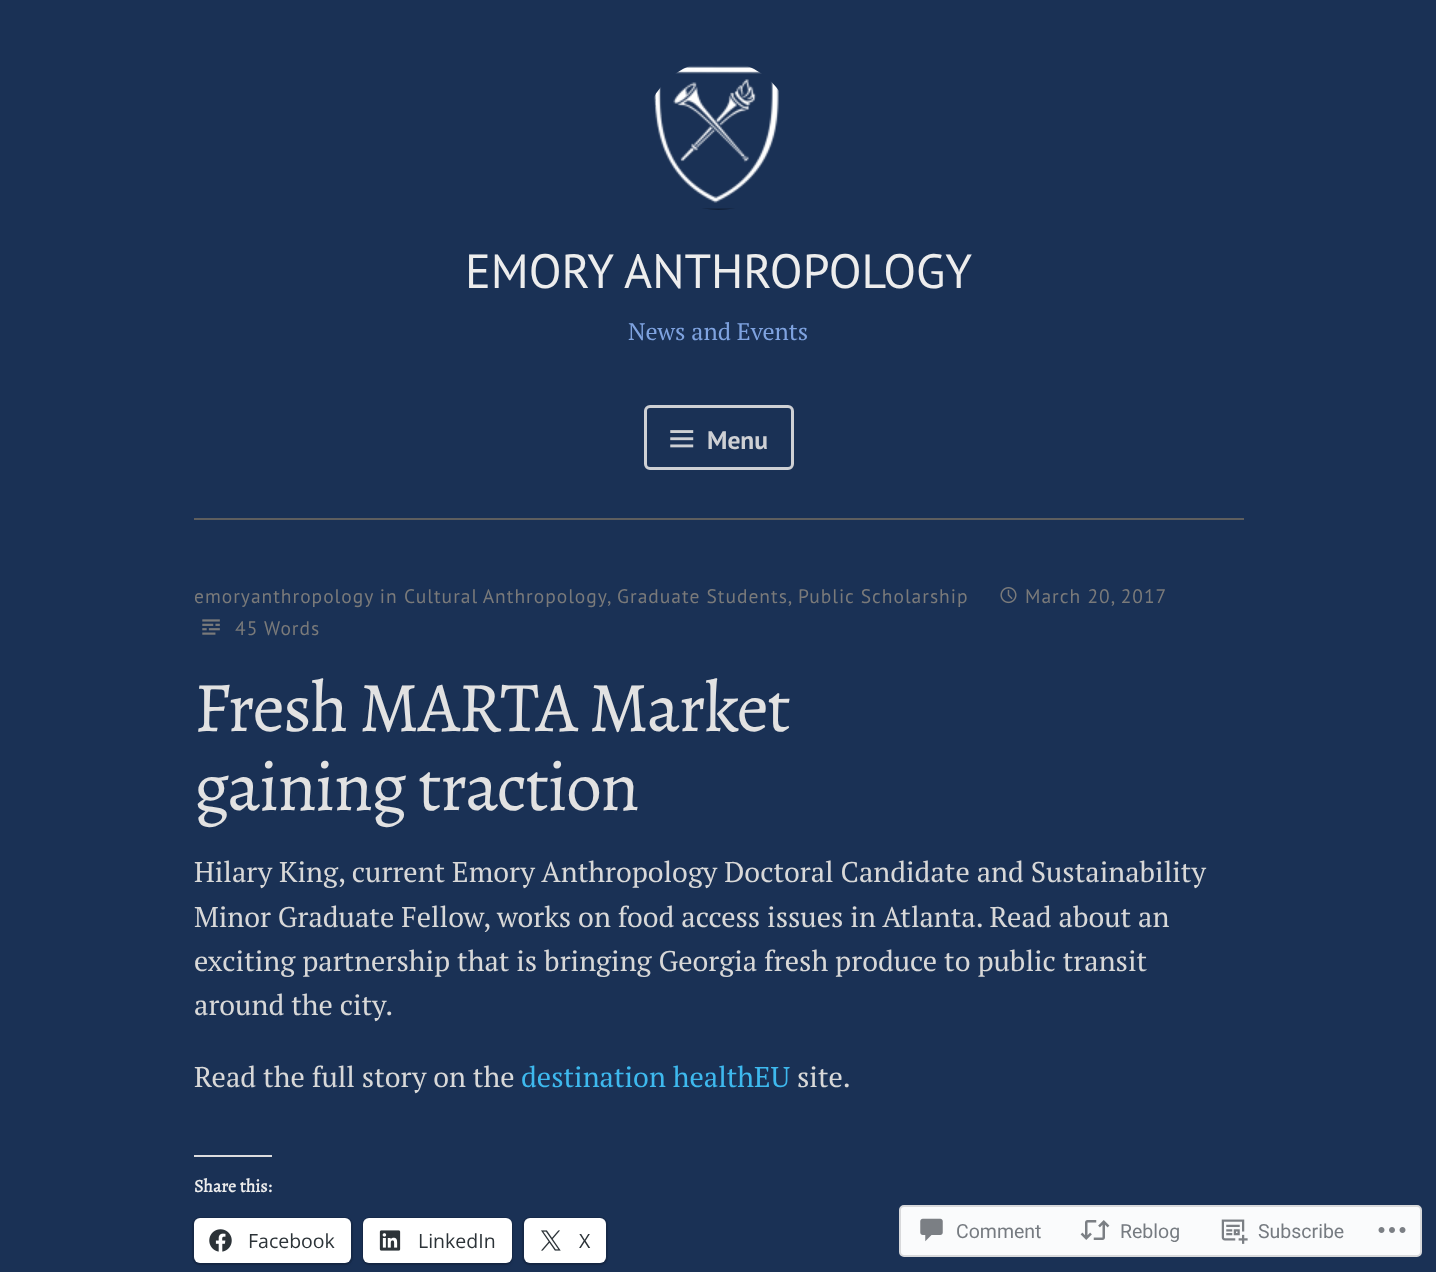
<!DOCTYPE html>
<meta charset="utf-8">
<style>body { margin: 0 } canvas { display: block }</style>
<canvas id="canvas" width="1436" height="1272"></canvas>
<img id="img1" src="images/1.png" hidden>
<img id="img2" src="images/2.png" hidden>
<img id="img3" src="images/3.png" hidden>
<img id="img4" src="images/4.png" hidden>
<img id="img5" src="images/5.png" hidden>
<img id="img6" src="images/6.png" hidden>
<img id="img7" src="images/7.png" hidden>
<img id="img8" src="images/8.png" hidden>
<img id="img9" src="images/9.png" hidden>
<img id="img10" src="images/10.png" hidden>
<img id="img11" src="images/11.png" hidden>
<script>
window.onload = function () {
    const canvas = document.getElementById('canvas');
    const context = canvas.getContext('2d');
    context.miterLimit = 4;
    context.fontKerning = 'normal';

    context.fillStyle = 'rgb(26, 49, 85)';
    context.fillRect(0, 0, 1436, 1272);
    context.drawImage(document.getElementById('img1'), 653, 65, 126, 145);
    context.fillStyle = 'rgb(94, 94, 94)';
    context.fillRect(194, 518, 1050, 2);
    context.beginPath();
    context.roundRect(645.5, 406.5, 147, 62, 4.5);
    context.strokeStyle = 'rgb(206, 208, 212)';
    context.lineWidth = 3;
    context.stroke();
    context.drawImage(document.getElementById('img2'), 670, 430, 24, 18);
    context.drawImage(document.getElementById('img3'), 1000, 587, 17, 17);
    context.drawImage(document.getElementById('img4'), 202, 619, 18, 16);
    context.fillStyle = 'rgb(220, 220, 222)';
    context.fillRect(194, 1155, 78, 2);
    context.beginPath();
    context.roundRect(193, 1218, 159, 46, 7);
    context.strokeStyle = 'rgb(23, 43, 75)';
    context.lineWidth = 2;
    context.stroke();
    context.fillStyle = 'rgba(0, 0, 0, 0.12)';
    context.filter = 'blur(1.5px)';
    context.beginPath();
    context.roundRect(194, 1220, 157, 45, 6);
    context.fill();
    context.filter = 'none';
    context.fillStyle = 'rgb(255, 255, 255)';
    context.beginPath();
    context.roundRect(194, 1218, 157, 45, 6);
    context.fill();
    context.drawImage(document.getElementById('img5'), 209, 1229, 23, 23);
    context.beginPath();
    context.roundRect(363, 1218, 149, 46, 7);
    context.stroke();
    context.fillStyle = 'rgba(0, 0, 0, 0.12)';
    context.filter = 'blur(1.5px)';
    context.beginPath();
    context.roundRect(363, 1220, 149, 45, 6);
    context.fill();
    context.filter = 'none';
    context.fillStyle = 'rgb(255, 255, 255)';
    context.beginPath();
    context.roundRect(363, 1218, 149, 45, 6);
    context.fill();
    context.drawImage(document.getElementById('img6'), 379, 1230, 22, 21);
    context.beginPath();
    context.roundRect(523, 1218, 84, 46, 7);
    context.stroke();
    context.fillStyle = 'rgba(0, 0, 0, 0.12)';
    context.filter = 'blur(1.5px)';
    context.beginPath();
    context.roundRect(524, 1220, 82, 45, 6);
    context.fill();
    context.filter = 'none';
    context.fillStyle = 'rgb(255, 255, 255)';
    context.beginPath();
    context.roundRect(524, 1218, 82, 45, 6);
    context.fill();
    context.drawImage(document.getElementById('img7'), 541, 1230, 20, 21);
    context.fillStyle = 'rgb(250, 251, 252)';
    context.beginPath();
    context.roundRect(900, 1206, 521, 50, 4);
    context.fill();
    context.strokeStyle = 'rgb(216, 217, 219)';
    context.stroke();
    context.drawImage(document.getElementById('img8'), 920, 1218, 23, 24);
    context.drawImage(document.getElementById('img9'), 1080, 1220, 30, 20);
    context.drawImage(document.getElementById('img10'), 1221, 1219, 27, 25);
    context.drawImage(document.getElementById('img11'), 1378, 1227, 28, 6);
    context.font = '48px PT Sans';
    context.fillStyle = 'rgb(237, 237, 237)';
    context.fillText('EMORY ANTHROPOLOGY', 465, 288);
    context.font = '24px PT Serif';
    context.fillStyle = 'rgb(127, 163, 224)';
    context.fillText('News and Events', 628, 340);
    context.font = 'bold 25.5px PT Sans';
    context.fillStyle = 'rgb(206, 208, 212)';
    context.fillText('Menu', 707, 449);
    context.letterSpacing = '1px';
    context.font = '19.5px PT Sans';
    context.fillStyle = 'rgb(122, 122, 122)';
    context.fillText('emoryanthropology in', 194, 603);
    context.wordSpacing = '-1px';
    context.fillText('Cultural Anthropology', 404, 603);
    context.wordSpacing = '0px';
    context.fillText(', Graduate Students, Public Scholarship', 607, 603);
    context.fillText('March 20, 2017', 1025, 603);
    context.fillText('45 Words', 235, 635);
    context.letterSpacing = '-1.5px';
    context.font = '71.25px Alegreya';
    context.fillStyle = 'rgb(226, 226, 226)';
    context.fillText('Fresh MARTA Market', 194, 731);
    context.fillText('gaining traction', 194, 810);
    context.letterSpacing = '0px';
    context.font = '28.5px PT Serif';
    context.fillStyle = 'rgb(216, 216, 216)';
    context.fillText('Hilary King, current Emory Anthropology Doctoral Candidate and Sustainability', 194, 882);
    context.fillText('Minor Graduate Fellow, works on food access issues in Atlanta. Read about an', 194, 927);
    context.fillText('exciting partnership that is bringing Georgia fresh produce to public transit', 194, 971);
    context.fillText('around the city.', 194, 1015);
    context.fillText('Read the full story on the', 194, 1087);
    context.fillStyle = 'rgb(62, 185, 238)';
    context.fillText('destination healthEU', 521, 1087);
    context.fillStyle = 'rgb(216, 216, 216)';
    context.fillText('site.', 797, 1087);
    context.font = 'bold 18px Alegreya';
    context.fillStyle = 'rgb(237, 237, 237)';
    context.fillText('Share this:', 194, 1192);
    context.font = '19.5px Open Sans';
    context.fillStyle = 'rgb(44, 51, 56)';
    context.fillText('Facebook', 248, 1248);
    context.fillText('LinkedIn', 418, 1248);
    context.fillText('X', 579, 1248);
    context.font = '19.5px Roboto';
    context.fillStyle = 'rgb(118, 123, 129)';
    context.fillText('Comment', 956, 1238);
    context.fillText('Reblog', 1120, 1238);
    context.fillText('Subscribe', 1258, 1238);
};
</script>
